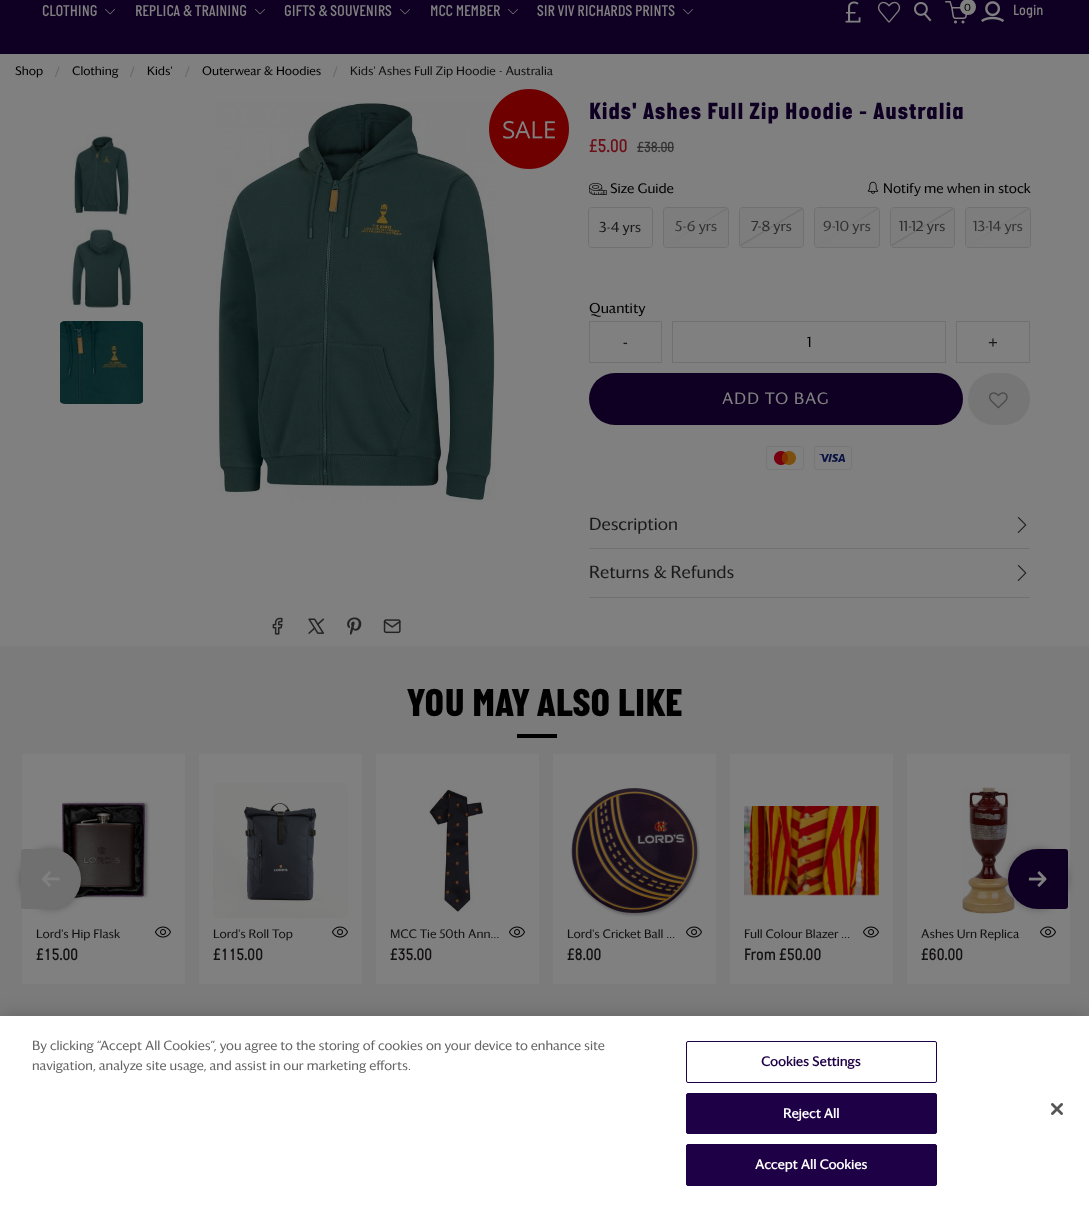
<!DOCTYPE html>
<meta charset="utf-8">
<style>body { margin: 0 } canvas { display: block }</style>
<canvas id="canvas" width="1089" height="1206"></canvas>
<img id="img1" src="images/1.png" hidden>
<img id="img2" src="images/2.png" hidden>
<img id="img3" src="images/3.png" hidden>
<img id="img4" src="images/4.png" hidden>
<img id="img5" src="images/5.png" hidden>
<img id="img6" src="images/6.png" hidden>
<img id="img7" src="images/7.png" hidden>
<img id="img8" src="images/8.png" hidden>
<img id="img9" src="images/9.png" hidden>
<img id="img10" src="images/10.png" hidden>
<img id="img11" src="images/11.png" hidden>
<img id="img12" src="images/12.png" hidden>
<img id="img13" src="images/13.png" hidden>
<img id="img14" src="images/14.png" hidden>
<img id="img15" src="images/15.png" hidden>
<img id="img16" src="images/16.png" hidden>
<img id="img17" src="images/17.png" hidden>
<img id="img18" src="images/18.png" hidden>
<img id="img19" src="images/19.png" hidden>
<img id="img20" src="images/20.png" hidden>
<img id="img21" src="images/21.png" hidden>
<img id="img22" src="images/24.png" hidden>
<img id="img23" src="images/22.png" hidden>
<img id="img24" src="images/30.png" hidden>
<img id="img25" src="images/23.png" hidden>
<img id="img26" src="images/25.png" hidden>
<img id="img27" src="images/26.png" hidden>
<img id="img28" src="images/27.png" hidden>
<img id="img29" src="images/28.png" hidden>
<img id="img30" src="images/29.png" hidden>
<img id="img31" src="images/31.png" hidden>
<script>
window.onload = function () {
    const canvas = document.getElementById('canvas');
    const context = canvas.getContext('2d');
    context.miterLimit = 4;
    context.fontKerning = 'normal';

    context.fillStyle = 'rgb(128, 128, 128)';
    context.fillRect(0, 0, 1089, 1206);
    context.fillStyle = 'rgb(15, 0, 35)';
    context.fillRect(0, 0, 1089, 54);
    context.drawImage(document.getElementById('img1'), 105, 9, 10, 6);
    context.drawImage(document.getElementById('img1'), 255, 9, 10, 6);
    context.drawImage(document.getElementById('img1'), 400, 9, 10, 6);
    context.drawImage(document.getElementById('img1'), 508, 9, 10, 6);
    context.drawImage(document.getElementById('img1'), 683, 9, 10, 6);
    context.drawImage(document.getElementById('img2'), 845, 1, 16, 22);
    context.drawImage(document.getElementById('img3'), 877, 1, 24, 22);
    context.drawImage(document.getElementById('img4'), 914, 2, 18, 20);
    context.drawImage(document.getElementById('img5'), 945, 1, 23, 23);
    context.fillStyle = 'rgb(128, 128, 128)';
    context.beginPath();
    context.arc(968, 7, 8, 0, 2 * Math.PI);
    context.fill();
    context.drawImage(document.getElementById('img6'), 981, 1, 24, 21);
    context.drawImage(document.getElementById('img7'), 73, 134, 57, 82);
    context.drawImage(document.getElementById('img8'), 69, 227, 63, 81);
    context.drawImage(document.getElementById('img9'), 60, 321, 83, 83);
    context.drawImage(document.getElementById('img10'), 216, 102, 279, 400);
    context.drawImage(document.getElementById('img11'), 489, 89, 80, 80);
    context.drawImage(document.getElementById('img12'), 272, 617, 11, 18);
    context.drawImage(document.getElementById('img13'), 308, 618, 16, 16);
    context.drawImage(document.getElementById('img14'), 347, 617, 15, 18);
    context.drawImage(document.getElementById('img15'), 383, 619, 18, 15);
    context.fillStyle = 'rgb(51, 51, 51)';
    context.fillRect(637, 147, 37, 1);
    context.drawImage(document.getElementById('img16'), 589, 183, 18, 12);
    context.drawImage(document.getElementById('img17'), 867, 181, 12, 13);
    context.beginPath();
    context.roundRect(588.5, 207.5, 64, 40, 3.5);
    context.strokeStyle = 'rgb(112, 112, 112)';
    context.stroke();
    context.fillStyle = 'rgb(128, 128, 128)';
    context.beginPath();
    context.roundRect(589, 208, 63, 39, 3);
    context.fill();
    context.beginPath();
    context.roundRect(663.5, 207.5, 65, 40, 3.5);
    context.stroke();
    context.fillStyle = 'rgb(125, 125, 125)';
    context.beginPath();
    context.roundRect(664, 208, 64, 39, 3);
    context.fill();
    context.fillStyle = 'rgb(112, 112, 112)';
    context.beginPath();
    context.moveTo(727, 209);
    context.lineTo(665, 246);
    context.lineTo(727, 208);
    context.closePath();
    context.fill();
    context.beginPath();
    context.roundRect(739.5, 207.5, 64, 40, 3.5);
    context.stroke();
    context.fillStyle = 'rgb(125, 125, 125)';
    context.beginPath();
    context.roundRect(740, 208, 63, 39, 3);
    context.fill();
    context.fillStyle = 'rgb(112, 112, 112)';
    context.beginPath();
    context.moveTo(803, 209);
    context.lineTo(741, 246);
    context.lineTo(740, 245);
    context.lineTo(802, 208);
    context.closePath();
    context.fill();
    context.beginPath();
    context.roundRect(814.5, 207.5, 65, 40, 3.5);
    context.stroke();
    context.fillStyle = 'rgb(125, 125, 125)';
    context.beginPath();
    context.roundRect(815, 208, 64, 39, 3);
    context.fill();
    context.fillStyle = 'rgb(112, 112, 112)';
    context.beginPath();
    context.moveTo(878, 209);
    context.lineTo(816, 246);
    context.lineTo(878, 208);
    context.closePath();
    context.fill();
    context.beginPath();
    context.roundRect(890.5, 207.5, 64, 40, 3.5);
    context.stroke();
    context.fillStyle = 'rgb(125, 125, 125)';
    context.beginPath();
    context.roundRect(891, 208, 63, 39, 3);
    context.fill();
    context.fillStyle = 'rgb(112, 112, 112)';
    context.beginPath();
    context.moveTo(954, 209);
    context.lineTo(892, 246);
    context.lineTo(891, 245);
    context.lineTo(953, 208);
    context.closePath();
    context.fill();
    context.beginPath();
    context.roundRect(965.5, 207.5, 65, 40, 3.5);
    context.stroke();
    context.fillStyle = 'rgb(125, 125, 125)';
    context.beginPath();
    context.roundRect(966, 208, 64, 39, 3);
    context.fill();
    context.fillStyle = 'rgb(112, 112, 112)';
    context.beginPath();
    context.moveTo(1029, 209);
    context.lineTo(967, 246);
    context.lineTo(1029, 208);
    context.closePath();
    context.fill();
    context.strokeRect(589.5, 321.5, 72, 41);
    context.strokeRect(672.5, 321.5, 273, 41);
    context.strokeRect(956.5, 321.5, 73, 41);
    context.fillStyle = 'rgb(15, 0, 35)';
    context.beginPath();
    context.roundRect(589, 373, 374, 52, 26);
    context.fill();
    context.fillStyle = 'rgb(118, 118, 118)';
    context.beginPath();
    context.roundRect(968, 373, 62, 52, 26);
    context.fill();
    context.drawImage(document.getElementById('img18'), 989, 392, 19, 17);
    context.drawImage(document.getElementById('img19'), 766, 446, 38, 24);
    context.drawImage(document.getElementById('img20'), 814, 446, 38, 24);
    context.fillStyle = 'rgb(112, 112, 112)';
    context.fillRect(589, 548, 441, 1);
    context.drawImage(document.getElementById('img21'), 1017, 517, 10, 16);
    context.fillRect(589, 597, 441, 1);
    context.drawImage(document.getElementById('img21'), 1017, 565, 10, 16);
    context.fillStyle = 'rgb(123, 123, 123)';
    context.fillRect(0, 646, 1089, 370);
    context.fillStyle = 'rgb(0, 0, 0)';
    context.fillRect(517, 734, 40, 4);
    context.fillStyle = 'rgb(128, 128, 128)';
    context.fillRect(22, 754, 163, 230);
    context.drawImage(document.getElementById('img22'), 62, 801, 88, 99);
    context.fillStyle = 'rgba(0, 0, 0, 0.3)';
    context.filter = 'blur(3.5px)';
    context.beginPath();
    context.roundRect(21, 849, 60, 60, 30);
    context.fill();
    context.filter = 'none';
    context.fillStyle = 'rgb(112, 112, 112)';
    context.beginPath();
    context.roundRect(21, 849, 60, 60, [3, 30, 30, 3]);
    context.fill();
    context.drawImage(document.getElementById('img23'), 42, 871, 18, 16);
    context.fillStyle = 'rgb(128, 128, 128)';
    context.fillRect(907, 754, 163, 230);
    context.drawImage(document.getElementById('img24'), 962, 787, 53, 127);
    context.fillStyle = 'rgba(0, 0, 0, 0.3)';
    context.filter = 'blur(3.5px)';
    context.beginPath();
    context.roundRect(1008, 849, 60, 60, 30);
    context.fill();
    context.filter = 'none';
    context.fillStyle = 'rgb(15, 0, 35)';
    context.beginPath();
    context.roundRect(1008, 849, 60, 60, [30, 3, 3, 30]);
    context.fill();
    context.drawImage(document.getElementById('img25'), 1028, 871, 19, 16);
    context.drawImage(document.getElementById('img26'), 155, 926, 16, 12);
    context.fillStyle = 'rgb(128, 128, 128)';
    context.fillRect(199, 754, 163, 230);
    context.drawImage(document.getElementById('img27'), 213, 783, 135, 135);
    context.drawImage(document.getElementById('img26'), 332, 926, 16, 12);
    context.fillRect(376, 754, 163, 230);
    context.drawImage(document.getElementById('img28'), 429, 789, 54, 123);
    context.drawImage(document.getElementById('img26'), 509, 926, 16, 12);
    context.fillRect(553, 754, 163, 230);
    context.drawImage(document.getElementById('img29'), 571, 788, 129, 129);
    context.drawImage(document.getElementById('img26'), 686, 926, 16, 12);
    context.fillRect(730, 754, 163, 230);
    context.drawImage(document.getElementById('img30'), 744, 806, 135, 90);
    context.drawImage(document.getElementById('img26'), 863, 926, 16, 12);
    context.drawImage(document.getElementById('img26'), 1040, 926, 16, 12);
    context.fillStyle = 'rgba(0, 0, 0, 0.2)';
    context.filter = 'blur(9px)';
    context.beginPath();
    context.rect(0, 1016, 1089, 190);
    context.fill();
    context.filter = 'none';
    context.fillStyle = 'rgb(255, 255, 255)';
    context.fillRect(0, 1016, 1089, 190);
    context.beginPath();
    context.roundRect(686.5, 1041.5, 250, 41, 1.5);
    context.strokeStyle = 'rgb(30, 0, 70)';
    context.stroke();
    context.fillStyle = 'rgb(30, 0, 70)';
    context.beginPath();
    context.roundRect(686.5, 1093.5, 250, 40, 1.5);
    context.fill();
    context.stroke();
    context.beginPath();
    context.roundRect(686.5, 1144.5, 250, 41, 1.5);
    context.fill();
    context.stroke();
    context.drawImage(document.getElementById('img31'), 1051, 1103, 12, 12);
    context.font = '500 16px "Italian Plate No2"';
    context.fillStyle = 'rgb(128, 128, 128)';
    context.fillText('CLOTHING', 42, 16);
    context.fillText('REPLICA & TRAINING', 135, 16);
    context.fillText('GIFTS & SOUVENIRS', 284, 16);
    context.fillText('MCC MEMBER', 430, 16);
    context.fillText('SIR VIV RICHARDS PRINTS', 537, 16);
    context.font = '10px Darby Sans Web';
    context.fillStyle = 'rgb(0, 0, 0)';
    context.fillText('0', 964, 11);
    context.font = '500 15px "Italian Plate No2"';
    context.fillStyle = 'rgb(128, 128, 128)';
    context.fillText('Login', 1013, 15);
    context.font = '12px Darby Sans Web';
    context.fillStyle = 'rgb(0, 0, 0)';
    context.fillText('Shop', 15, 75);
    context.fillStyle = 'rgb(101, 101, 101)';
    context.fillText('/', 55, 75);
    context.fillStyle = 'rgb(0, 0, 0)';
    context.fillText('Clothing', 72, 75);
    context.fillStyle = 'rgb(101, 101, 101)';
    context.fillText('/', 130, 75);
    context.fillStyle = 'rgb(0, 0, 0)';
    context.fillText('Kids\'', 147, 75);
    context.fillStyle = 'rgb(101, 101, 101)';
    context.fillText('/', 185, 75);
    context.fillStyle = 'rgb(0, 0, 0)';
    context.fillText('Outerwear & Hoodies', 202, 75);
    context.fillStyle = 'rgb(101, 101, 101)';
    context.fillText('/', 333, 75);
    context.fillStyle = 'rgb(18, 16, 16)';
    context.fillText('Kids\' Ashes Full Zip Hoodie - Australia', 350, 75);
    context.letterSpacing = '1px';
    context.font = '800 23.75px "Italian Plate No2"';
    context.fillStyle = 'rgb(15, 0, 35)';
    context.fillText('Kids\' Ashes Full Zip Hoodie - Australia', 589, 119);
    context.letterSpacing = '0px';
    context.font = '500 19px "Italian Plate No2"';
    context.fillStyle = 'rgb(108, 14, 23)';
    context.fillText('£5.00', 589, 152);
    context.font = '500 15px "Italian Plate No2"';
    context.fillStyle = 'rgb(51, 51, 51)';
    context.fillText('£38.00', 637, 152);
    context.font = '13.5px Darby Sans Web';
    context.fillStyle = 'rgb(0, 0, 0)';
    context.fillText('Size Guide', 610, 193);
    context.fillText('Notify me when in stock', 883, 193);
    context.font = '14px Darby Sans Web';
    context.fillStyle = 'rgb(26, 26, 26)';
    context.fillText('3-4 yrs', 599, 232);
    context.fillStyle = 'rgb(51, 51, 51)';
    context.fillText('5-6 yrs', 675, 231);
    context.fillStyle = 'rgb(45, 45, 45)';
    context.fillText('7-8 yrs', 751, 231);
    context.fillStyle = 'rgb(51, 51, 51)';
    context.fillText('9-10 yrs', 823, 231);
    context.fillStyle = 'rgb(45, 45, 45)';
    context.fillText('11-12 yrs', 899, 231);
    context.fillStyle = 'rgb(51, 51, 51)';
    context.fillText('13-14 yrs', 973, 231);
    context.fillStyle = 'rgb(0, 0, 0)';
    context.fillText('Quantity', 589, 313);
    context.letterSpacing = '1px';
    context.font = '20px Darby Sans Web';
    context.fillStyle = 'rgb(26, 26, 26)';
    context.fillText('-', 622, 349);
    context.letterSpacing = '0px';
    context.font = '14px Darby Sans Web';
    context.fillStyle = 'rgb(0, 0, 0)';
    context.fillText('1', 807, 347);
    context.letterSpacing = '1px';
    context.font = '20px Darby Sans Web';
    context.fillStyle = 'rgb(26, 26, 26)';
    context.fillText('+', 988, 349);
    context.font = '16px Darby Sans Web';
    context.fillStyle = 'rgb(128, 128, 128)';
    context.fillText('ADD TO BAG', 722, 404);
    context.letterSpacing = '0px';
    context.font = '17px Darby Sans Web';
    context.fillStyle = 'rgb(26, 26, 26)';
    context.fillText('Description', 589, 530);
    context.fillText('Returns & Refunds', 589, 578);
    context.font = '800 39.75px "Italian Plate No2"';
    context.fillStyle = 'rgb(0, 0, 0)';
    context.fillText('YOU MAY ALSO LIKE', 407, 716);
    context.font = '12px Darby Sans Web';
    context.fillStyle = 'rgb(18, 16, 16)';
    context.fillText('Lord\'s Hip Flask', 36, 938);
    context.font = '500 17px "Italian Plate No2"';
    context.fillText('£15.00', 36, 960);
    context.font = '12px Darby Sans Web';
    context.fillText('Lord\'s Roll Top', 213, 938);
    context.font = '500 17px "Italian Plate No2"';
    context.fillText('£115.00', 213, 960);
    context.font = '12px Darby Sans Web';
    context.fillText('MCC Tie 50th Ann…', 390, 938);
    context.font = '500 17px "Italian Plate No2"';
    context.fillText('£35.00', 390, 960);
    context.font = '12px Darby Sans Web';
    context.fillText('Lord\'s Cricket Ball …', 567, 938);
    context.font = '500 17px "Italian Plate No2"';
    context.fillText('£8.00', 567, 960);
    context.font = '12px Darby Sans Web';
    context.fillText('Full Colour Blazer …', 744, 938);
    context.font = '500 17px "Italian Plate No2"';
    context.fillText('From £50.00', 744, 960);
    context.font = '12px Darby Sans Web';
    context.fillText('Ashes Urn Replica', 921, 938);
    context.font = '500 17px "Italian Plate No2"';
    context.fillText('£60.00', 921, 960);
    context.font = '13px Darby Sans Web';
    context.fillStyle = 'rgb(101, 101, 101)';
    context.fillText('By clicking “Accept All Cookies”, you agree to the storing of cookies on your device to enhance site', 32, 1050);
    context.fillText('navigation, analyze site usage, and assist in our marketing efforts.', 32, 1070);
    context.letterSpacing = '0.1px';
    context.font = 'bold 13px Darby Sans Web';
    context.fillStyle = 'rgb(30, 0, 70)';
    context.fillText('Cookies Settings', 761, 1066);
    context.fillStyle = 'rgb(255, 255, 255)';
    context.fillText('Reject All', 783, 1118);
    context.fillText('Accept All Cookies', 755, 1169);
};
</script>
